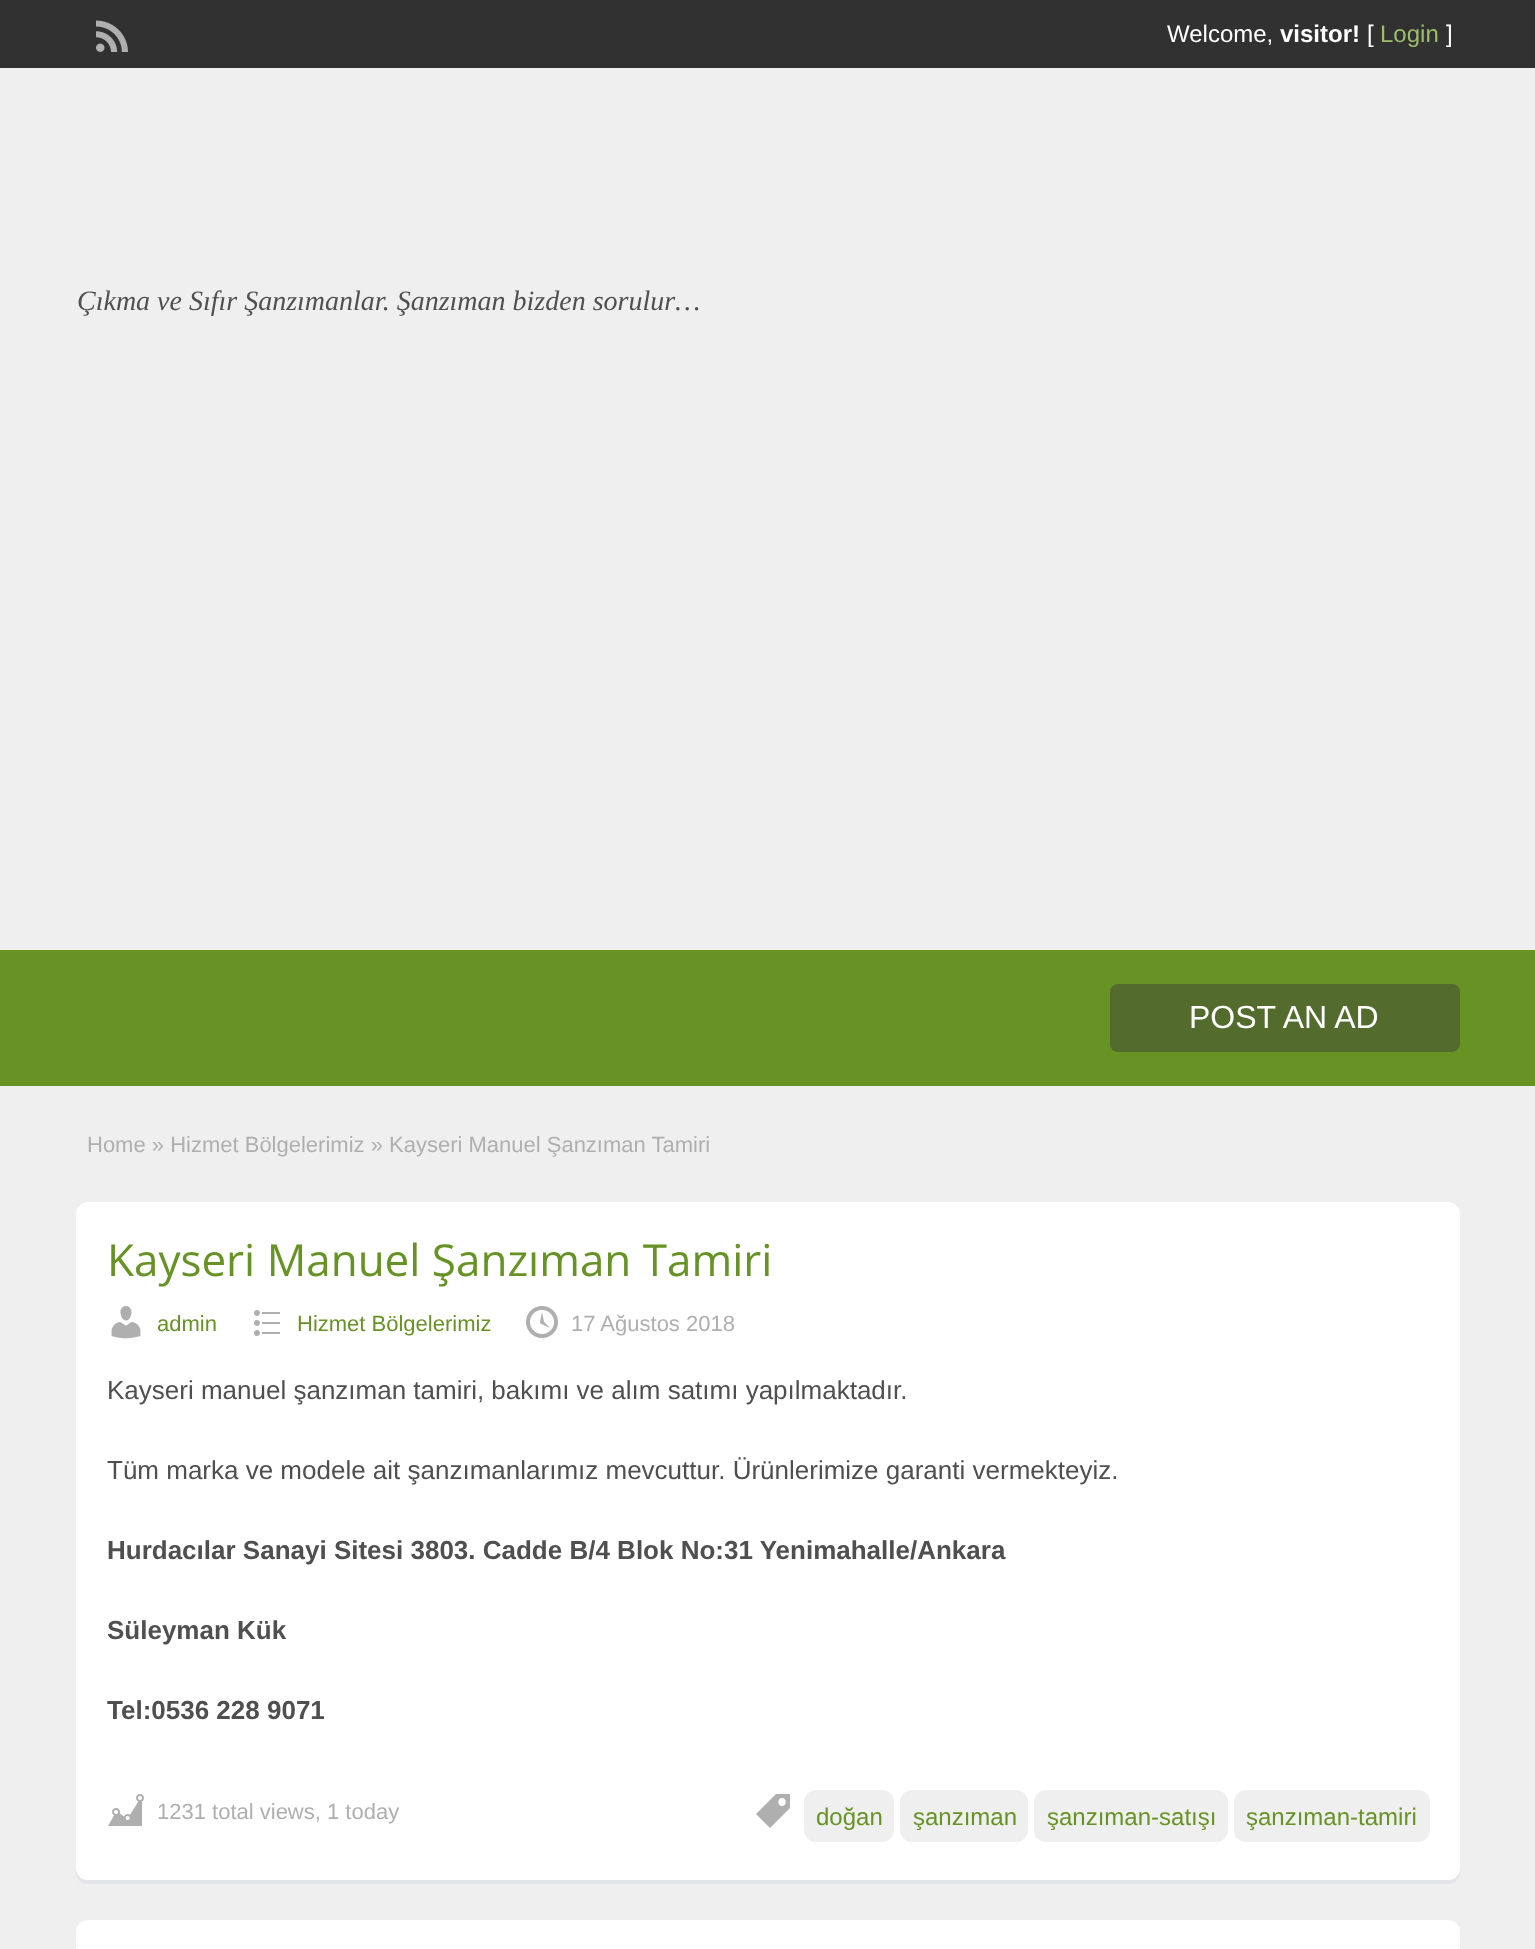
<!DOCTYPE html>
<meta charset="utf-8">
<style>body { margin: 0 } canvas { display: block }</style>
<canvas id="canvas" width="1535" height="1949"></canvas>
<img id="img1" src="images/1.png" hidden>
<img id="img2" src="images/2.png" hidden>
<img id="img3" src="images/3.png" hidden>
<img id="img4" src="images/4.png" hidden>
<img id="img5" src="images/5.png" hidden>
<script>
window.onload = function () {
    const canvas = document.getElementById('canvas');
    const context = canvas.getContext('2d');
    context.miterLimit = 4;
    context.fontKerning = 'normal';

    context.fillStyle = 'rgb(239, 239, 239)';
    context.fillRect(0, 0, 1535, 1949);
    context.fillStyle = 'rgb(49, 49, 49)';
    context.fillRect(0, 0, 1535, 68);
    context.drawImage(document.getElementById('img1'), 96, 20, 32, 32);
    context.fillStyle = 'rgb(103, 147, 37)';
    context.fillRect(0, 950, 1535, 136);
    context.fillStyle = 'rgb(83, 108, 46)';
    context.beginPath();
    context.roundRect(1110, 984, 350, 68, 8);
    context.fill();
    context.fillStyle = 'rgb(227, 228, 231)';
    context.beginPath();
    context.moveTo(76, 1868);
    context.lineTo(76, 1872);
    context.bezierCurveTo(76, 1879, 81, 1884, 88, 1884);
    context.lineTo(1448, 1884);
    context.bezierCurveTo(1455, 1884, 1460, 1879, 1460, 1872);
    context.lineTo(1460, 1868);
    context.bezierCurveTo(1460, 1875, 1455, 1880, 1448, 1880);
    context.lineTo(88, 1880);
    context.bezierCurveTo(81, 1880, 76, 1875, 76, 1868);
    context.closePath();
    context.fill();
    context.fillStyle = 'rgb(255, 255, 255)';
    context.beginPath();
    context.roundRect(76, 1202, 1384, 678, 12);
    context.fill();
    context.drawImage(document.getElementById('img2'), 111, 1306, 30, 33);
    context.drawImage(document.getElementById('img3'), 254, 1310, 26, 26);
    context.drawImage(document.getElementById('img4'), 526, 1306, 32, 32);
    context.drawImage(document.getElementById('img5'), 108, 1794, 36, 32);
    context.fillStyle = 'rgb(175, 175, 175)';
    context.beginPath();
    context.moveTo(776, 1794);
    context.lineTo(790, 1794);
    context.lineTo(790, 1808);
    context.lineTo(770, 1828);
    context.lineTo(756, 1814);
    context.closePath();
    context.moveTo(782, 1806);
    context.bezierCurveTo(787, 1806, 787, 1798, 782, 1798);
    context.bezierCurveTo(777, 1798, 777, 1806, 782, 1806);
    context.closePath();
    context.fill();
    context.fillStyle = 'rgb(239, 239, 239)';
    context.beginPath();
    context.roundRect(804, 1790, 90, 52, 12);
    context.fill();
    context.beginPath();
    context.roundRect(900, 1790, 128, 52, 12);
    context.fill();
    context.beginPath();
    context.roundRect(1034, 1790, 194, 52, 12);
    context.fill();
    context.beginPath();
    context.roundRect(1234, 1790, 196, 52, 12);
    context.fill();
    context.fillStyle = 'rgb(255, 255, 255)';
    context.beginPath();
    context.roundRect(76, 1920, 1384, 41, 12);
    context.fill();
    context.font = '24px Liberation Sans';
    context.fillText('Welcome,', 1167, 42);
    context.font = 'bold 24px Liberation Sans';
    context.fillText('visitor!', 1280, 42);
    context.font = '24px Liberation Sans';
    context.fillText('[', 1367, 42);
    context.fillStyle = 'rgb(157, 189, 109)';
    context.fillText('Login', 1380, 42);
    context.fillStyle = 'rgb(255, 255, 255)';
    context.fillText(']', 1446, 42);
    context.font = 'italic 28px Liberation Serif';
    context.fillStyle = 'rgb(79, 79, 79)';
    context.fillText('Çıkma ve Sıfır Şanzımanlar. Şanzıman bizden sorulur…', 77, 310);
    context.font = '32px Liberation Sans';
    context.fillStyle = 'rgb(255, 255, 255)';
    context.fillText('POST AN AD', 1189, 1028);
    context.font = '22px Liberation Sans';
    context.fillStyle = 'rgb(175, 175, 175)';
    context.fillText('Home » Hizmet Bölgelerimiz » Kayseri Manuel Şanzıman Tamiri', 87, 1152);
    context.font = '44px Open Sans';
    context.fillStyle = 'rgb(103, 147, 37)';
    context.fillText('Kayseri Manuel Şanzıman Tamiri', 107, 1276);
    context.font = '22px Liberation Sans';
    context.fillText('admin', 157, 1331);
    context.fillText('Hizmet Bölgelerimiz', 297, 1331);
    context.fillStyle = 'rgb(175, 175, 175)';
    context.fillText('17 Ağustos 2018', 571, 1331);
    context.font = '26px Liberation Sans';
    context.fillStyle = 'rgb(79, 79, 79)';
    context.fillText('Kayseri manuel şanzıman tamiri, bakımı ve alım satımı yapılmaktadır.', 107, 1399);
    context.fillText('Tüm marka ve modele ait şanzımanlarımız mevcuttur. Ürünlerimize garanti vermekteyiz.', 107, 1479);
    context.font = 'bold 26px Liberation Sans';
    context.fillText('Hurdacılar Sanayi Sitesi 3803. Cadde B/4 Blok No:31 Yenimahalle/Ankara', 107, 1559);
    context.fillText('Süleyman Kük', 107, 1639);
    context.fillText('Tel:0536 228 9071', 107, 1719);
    context.font = '22px Liberation Sans';
    context.fillStyle = 'rgb(175, 175, 175)';
    context.fillText('1231 total views, 1 today', 157, 1819);
    context.font = '24px Liberation Sans';
    context.fillStyle = 'rgb(103, 147, 37)';
    context.fillText('doğan', 816, 1825);
    context.fillText('şanzıman', 913, 1825);
    context.fillText('şanzıman-satışı', 1047, 1825);
    context.fillText('şanzıman-tamiri', 1246, 1825);
};
</script>
